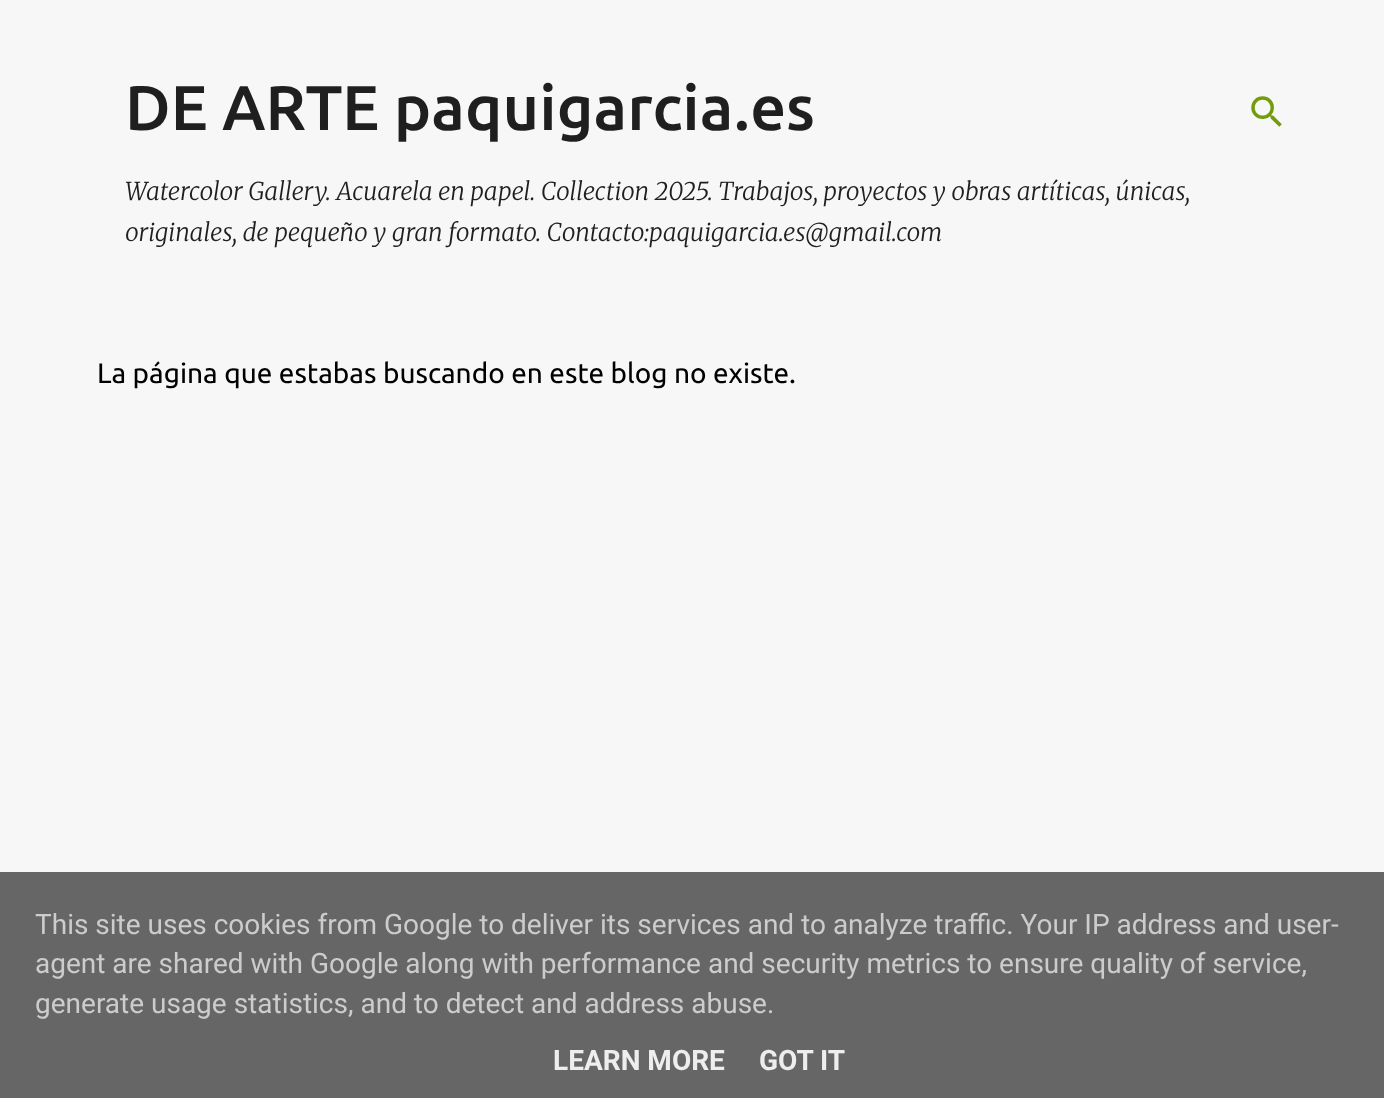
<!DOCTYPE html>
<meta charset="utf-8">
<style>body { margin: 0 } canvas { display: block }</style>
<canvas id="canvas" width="1384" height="1098"></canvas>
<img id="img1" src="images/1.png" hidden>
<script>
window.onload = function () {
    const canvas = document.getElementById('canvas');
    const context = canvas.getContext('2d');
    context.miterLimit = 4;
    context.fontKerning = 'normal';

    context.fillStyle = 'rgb(247, 247, 247)';
    context.fillRect(0, 0, 1384, 1098);
    context.drawImage(document.getElementById('img1'), 1251, 96, 31, 31);
    context.fillStyle = 'rgb(102, 102, 102)';
    context.fillRect(0, 872, 1384, 226);
    context.font = '500 63px Ubuntu';
    context.fillStyle = 'rgb(31, 31, 31)';
    context.fillText('DE ARTE paquigarcia.es', 125, 130);
    context.font = 'italic 300 24.5px Merriweather';
    context.fillText('Watercolor Gallery. Acuarela en papel. Collection 2025. Trabajos, proyectos y obras artíticas, únicas,', 125, 200);
    context.fillText('originales, de pequeño y gran formato. Contacto:paquigarcia.es@gmail.com', 125, 241);
    context.font = '28px Ubuntu';
    context.fillStyle = 'rgb(0, 0, 0)';
    context.fillText('La página que estabas buscando en este blog no existe.', 97, 383);
    context.font = '28px Roboto';
    context.fillStyle = 'rgb(204, 204, 204)';
    context.fillText('This site uses cookies from Google to deliver its services and to analyze traffic. Your IP address and user-', 35, 934);
    context.fillText('agent are shared with Google along with performance and security metrics to ensure quality of service,', 35, 973);
    context.fillText('generate usage statistics, and to detect and address abuse.', 35, 1013);
    context.font = 'bold 28px Roboto';
    context.fillStyle = 'rgb(238, 238, 238)';
    context.fillText('LEARN MORE', 553, 1070);
    context.fillText('GOT IT', 759, 1070);
};
</script>
